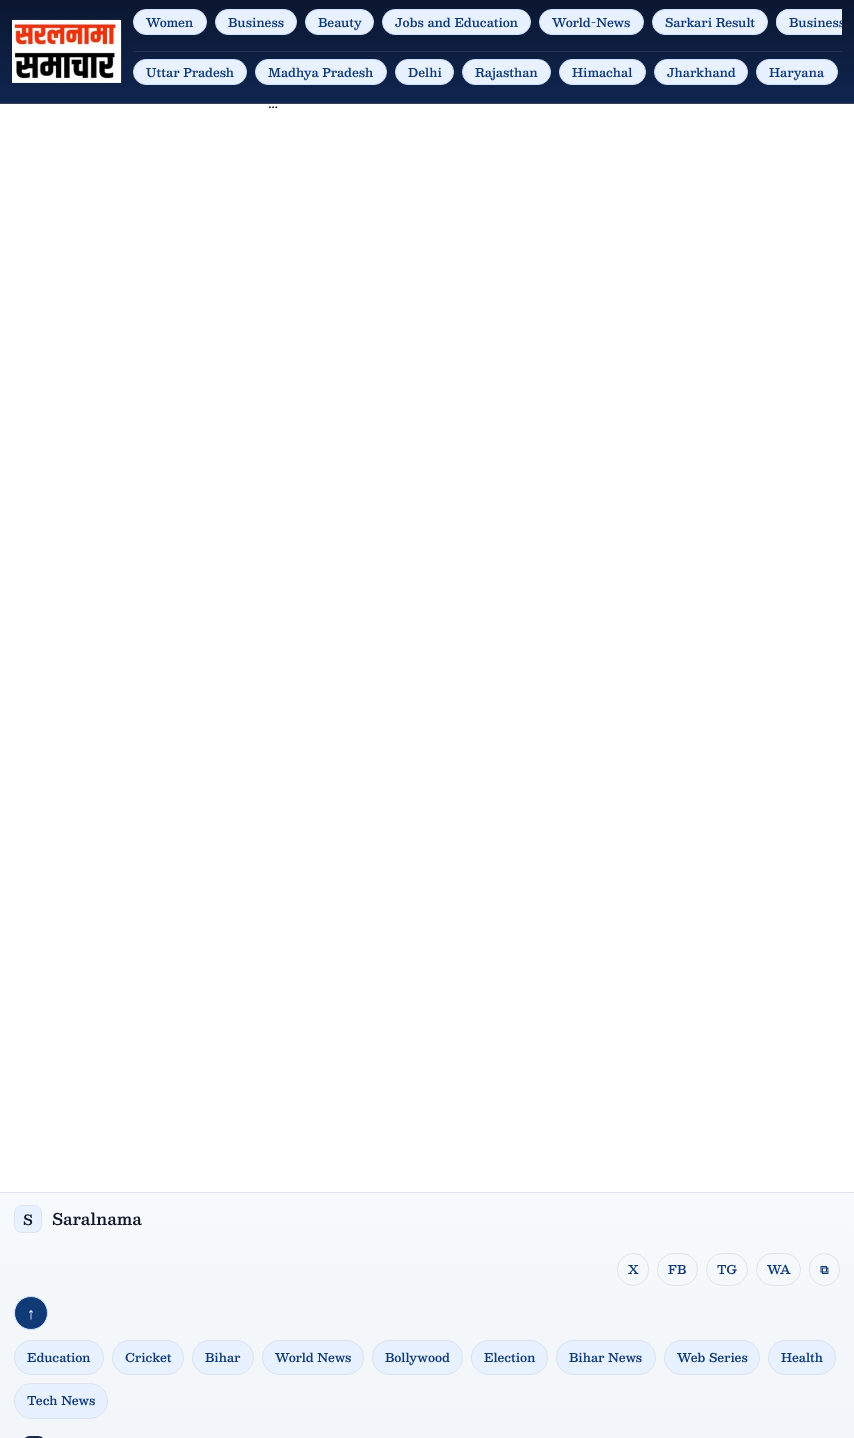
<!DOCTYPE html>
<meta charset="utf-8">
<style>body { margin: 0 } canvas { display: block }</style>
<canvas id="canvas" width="854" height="1438"></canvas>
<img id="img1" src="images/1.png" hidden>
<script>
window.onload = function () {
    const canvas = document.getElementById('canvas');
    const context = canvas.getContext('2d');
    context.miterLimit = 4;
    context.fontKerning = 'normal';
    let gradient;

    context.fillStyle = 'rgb(255, 255, 255)';
    context.fillRect(0, 0, 854, 1438);
    gradient = context.createLinearGradient(427, 0, 427, 103);
    gradient.addColorStop(0, 'rgb(11, 23, 48)');
    gradient.addColorStop(1, 'rgb(15, 37, 79)');
    context.fillStyle = gradient;
    context.fillRect(0, 0, 854, 103);
    context.fillStyle = 'rgb(55, 65, 85)';
    context.fillRect(0, 103, 854, 1);
    context.drawImage(document.getElementById('img1'), 12, 19, 110, 64);
    context.fillStyle = 'rgb(232, 241, 255)';
    context.beginPath();
    context.roundRect(133.5, 9.5, 73, 25, 12.5);
    context.fill();
    context.strokeStyle = 'rgb(207, 224, 255)';
    context.stroke();
    context.beginPath();
    context.roundRect(215.5, 9.5, 81, 25, 12.5);
    context.fill();
    context.stroke();
    context.beginPath();
    context.roundRect(305.5, 9.5, 68, 25, 12.5);
    context.fill();
    context.stroke();
    context.beginPath();
    context.roundRect(382.5, 9.5, 148, 25, 12.5);
    context.fill();
    context.stroke();
    context.beginPath();
    context.roundRect(539.5, 9.5, 104, 25, 12.5);
    context.fill();
    context.stroke();
    context.beginPath();
    context.roundRect(652.5, 9.5, 115, 25, 12.5);
    context.fill();
    context.stroke();
    context.beginPath();
    context.roundRect(776, 9, 66, 26, [13, 0, 0, 13]);
    context.fill();
    context.save();
    context.beginPath();
    context.rect(133, 8, 709, 37);
    context.clip();
    context.beginPath();
    context.roundRect(776.5, 9.5, 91, 25, 12.5);
    context.stroke();
    context.restore();
    context.fillStyle = 'rgb(37, 53, 83)';
    context.fillRect(133, 51, 709, 1);
    context.fillStyle = 'rgb(232, 241, 255)';
    context.beginPath();
    context.roundRect(133.5, 59.5, 113, 25, 12.5);
    context.fill();
    context.stroke();
    context.beginPath();
    context.roundRect(255.5, 59.5, 131, 25, 12.5);
    context.fill();
    context.stroke();
    context.beginPath();
    context.roundRect(395.5, 59.5, 58, 25, 12.5);
    context.fill();
    context.stroke();
    context.beginPath();
    context.roundRect(462.5, 59.5, 88, 25, 12.5);
    context.fill();
    context.stroke();
    context.beginPath();
    context.roundRect(559.5, 59.5, 86, 25, 12.5);
    context.fill();
    context.stroke();
    context.beginPath();
    context.roundRect(654.5, 59.5, 93, 25, 12.5);
    context.fill();
    context.stroke();
    context.beginPath();
    context.roundRect(756.5, 59.5, 81, 25, 12.5);
    context.fill();
    context.stroke();
    gradient = context.createLinearGradient(427, 1193, 427, 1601);
    gradient.addColorStop(0, 'rgb(247, 250, 252)');
    gradient.addColorStop(1, 'rgb(238, 242, 247)');
    context.fillStyle = gradient;
    context.fillRect(0, 1193, 854, 245);
    context.fillStyle = 'rgb(219, 228, 238)';
    context.fillRect(0, 1192, 854, 1);
    context.fillStyle = 'rgb(232, 241, 255)';
    context.beginPath();
    context.roundRect(14.5, 1205.5, 27, 27, 7.5);
    context.fill();
    context.strokeStyle = 'rgb(219, 228, 238)';
    context.stroke();
    context.beginPath();
    context.roundRect(617.5, 1253.5, 31, 32, 15.5);
    context.stroke();
    context.beginPath();
    context.roundRect(657.5, 1253.5, 40, 32, 16);
    context.stroke();
    context.beginPath();
    context.roundRect(706.5, 1253.5, 41, 32, 16);
    context.stroke();
    context.beginPath();
    context.roundRect(756.5, 1253.5, 44, 32, 16);
    context.stroke();
    context.beginPath();
    context.roundRect(809.5, 1253.5, 30, 32, 15);
    context.stroke();
    context.fillStyle = 'rgb(16, 58, 118)';
    context.beginPath();
    context.arc(31, 1313, 16.5, 0, 2 * Math.PI);
    context.fill();
    context.strokeStyle = 'rgb(207, 224, 255)';
    context.stroke();
    context.fillStyle = 'rgb(232, 241, 255)';
    context.beginPath();
    context.roundRect(14.5, 1340.5, 89, 34, 17);
    context.fill();
    context.strokeStyle = 'rgb(219, 228, 238)';
    context.stroke();
    context.beginPath();
    context.roundRect(112.5, 1340.5, 71, 34, 17);
    context.fill();
    context.stroke();
    context.beginPath();
    context.roundRect(192.5, 1340.5, 61, 34, 17);
    context.fill();
    context.stroke();
    context.beginPath();
    context.roundRect(262.5, 1340.5, 101, 34, 17);
    context.fill();
    context.stroke();
    context.beginPath();
    context.roundRect(372.5, 1340.5, 90, 34, 17);
    context.fill();
    context.stroke();
    context.beginPath();
    context.roundRect(471.5, 1340.5, 76, 34, 17);
    context.fill();
    context.stroke();
    context.beginPath();
    context.roundRect(556.5, 1340.5, 99, 34, 17);
    context.fill();
    context.stroke();
    context.beginPath();
    context.roundRect(664.5, 1340.5, 95, 34, 17);
    context.fill();
    context.stroke();
    context.beginPath();
    context.roundRect(768.5, 1340.5, 67, 34, 17);
    context.fill();
    context.stroke();
    context.beginPath();
    context.roundRect(14.5, 1383.5, 93, 35, 17.5);
    context.fill();
    context.stroke();
    context.fillStyle = 'rgb(26, 43, 74)';
    context.beginPath();
    context.roundRect(23, 1436, 22, 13, 11);
    context.fill();
    context.font = '600 12px Besley';
    context.fillStyle = 'rgb(16, 58, 118)';
    context.fillText('Women', 146, 27);
    context.fillText('Business', 228, 27);
    context.fillText('Beauty', 318, 27);
    context.fillText('Jobs and Education', 395, 27);
    context.fillText('World-News', 552, 27);
    context.fillText('Sarkari Result', 665, 27);
    context.save();
    context.beginPath();
    context.rect(133, 8, 709, 37);
    context.clip();
    context.fillText('Business', 789, 27);
    context.restore();
    context.fillText('Uttar Pradesh', 146, 77);
    context.fillText('Madhya Pradesh', 268, 77);
    context.fillText('Delhi', 408, 77);
    context.fillText('Rajasthan', 475, 77);
    context.fillText('Himachal', 572, 77);
    context.fillText('Jharkhand', 667, 77);
    context.fillText('Haryana', 769, 77);
    context.font = '16px Besley';
    context.fillStyle = 'rgb(24, 23, 23)';
    context.fillText('…', 268, 108);
    context.font = '600 14px Besley';
    context.fillStyle = 'rgb(15, 23, 42)';
    context.fillText('S', 23, 1225);
    context.font = '600 16px Besley';
    context.fillText('Saralnama', 52, 1225);
    context.font = '600 12px Besley';
    context.fillStyle = 'rgb(16, 58, 118)';
    context.fillText('X', 628, 1274);
    context.fillText('FB', 668, 1274);
    context.fillText('TG', 717, 1274);
    context.fillText('WA', 767, 1274);
    context.font = 'bold 12px FreeSerif';
    context.fillText('⧉', 820, 1274);
    context.font = 'bold 16px Liberation Sans';
    context.fillStyle = 'rgb(255, 255, 255)';
    context.fillText('↑', 27, 1319);
    context.font = '600 12px Besley';
    context.fillStyle = 'rgb(16, 58, 118)';
    context.fillText('Education', 27, 1362);
    context.fillText('Cricket', 125, 1362);
    context.fillText('Bihar', 205, 1362);
    context.fillText('World News', 275, 1362);
    context.fillText('Bollywood', 385, 1362);
    context.fillText('Election', 484, 1362);
    context.fillText('Bihar News', 569, 1362);
    context.fillText('Web Series', 677, 1362);
    context.fillText('Health', 781, 1362);
    context.fillText('Tech News', 27, 1405);
};
</script>
